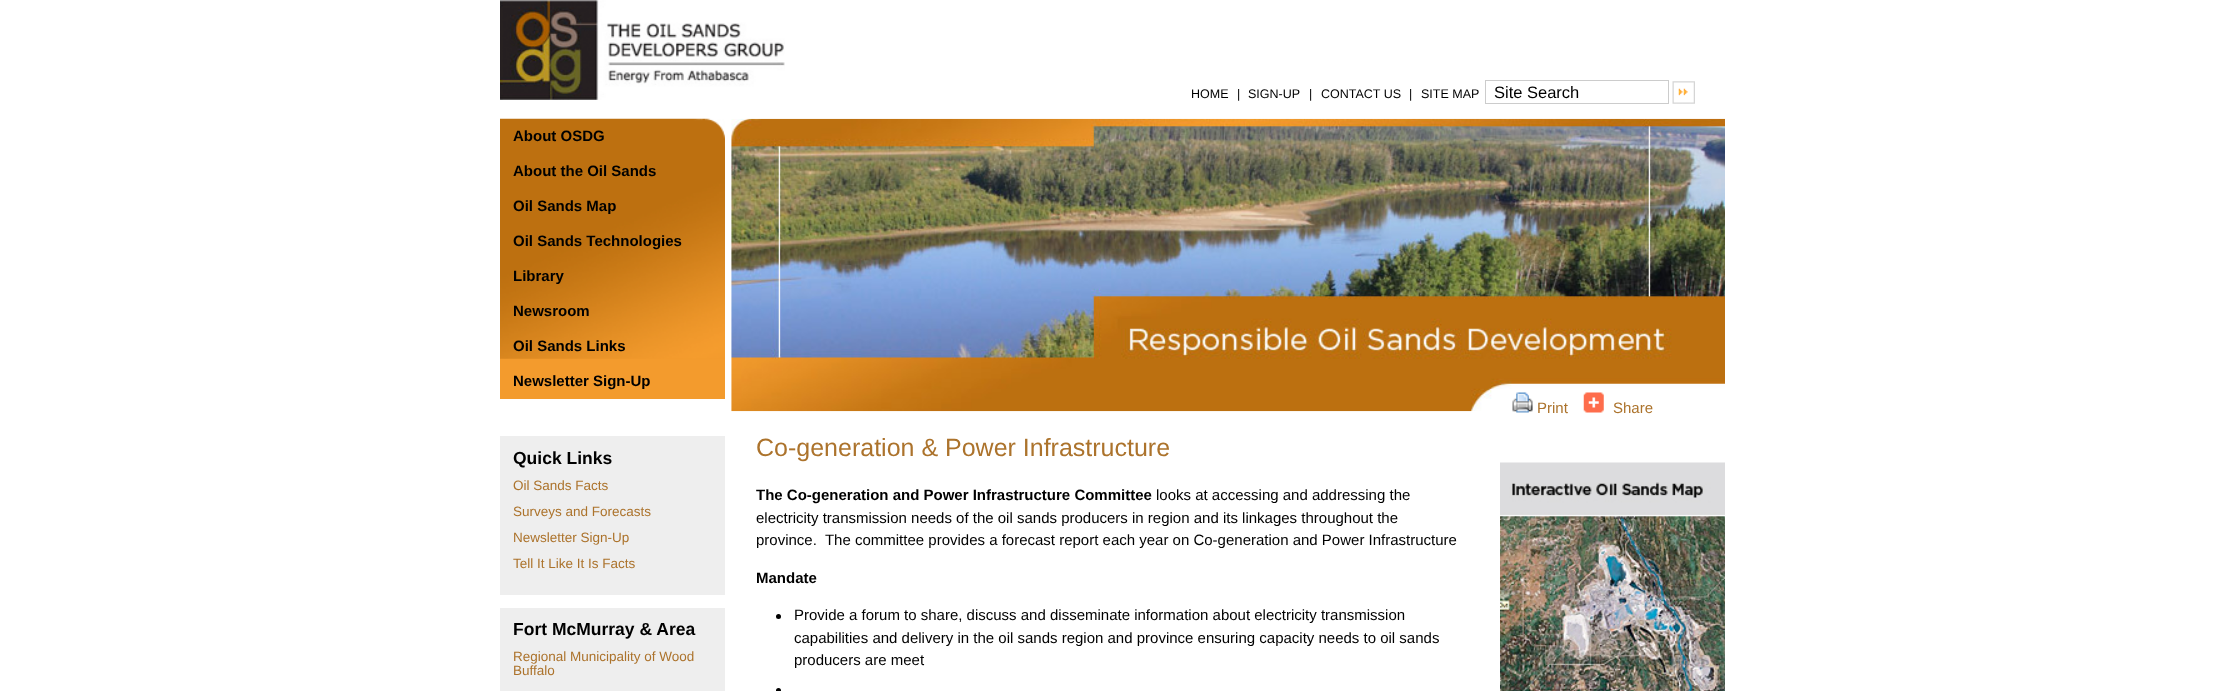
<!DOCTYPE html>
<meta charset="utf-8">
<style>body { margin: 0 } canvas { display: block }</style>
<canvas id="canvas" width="2224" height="691"></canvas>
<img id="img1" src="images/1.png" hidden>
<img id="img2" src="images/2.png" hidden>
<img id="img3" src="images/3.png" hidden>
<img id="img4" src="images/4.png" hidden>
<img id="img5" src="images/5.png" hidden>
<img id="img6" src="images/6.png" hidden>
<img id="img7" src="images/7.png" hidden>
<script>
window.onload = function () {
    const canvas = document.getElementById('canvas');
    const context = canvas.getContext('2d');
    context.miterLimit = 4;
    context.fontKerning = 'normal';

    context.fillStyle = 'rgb(255, 255, 255)';
    context.fillRect(0, 0, 2224, 691);
    context.drawImage(document.getElementById('img1'), 500, 0, 285, 100);
    context.strokeStyle = 'rgb(204, 204, 204)';
    context.strokeRect(1485.5, 80.5, 183, 23);
    context.drawImage(document.getElementById('img2'), 1672, 81, 23, 23);
    context.fillStyle = 'rgb(243, 155, 45)';
    context.fillRect(500, 358, 225, 41);
    context.drawImage(document.getElementById('img3'), 500, 118, 225, 241);
    context.fillStyle = 'rgb(238, 238, 238)';
    context.fillRect(500, 436, 225, 159);
    context.fillRect(500, 608, 225, 83);
    context.drawImage(document.getElementById('img4'), 731, 118, 994, 294);
    context.drawImage(document.getElementById('img5'), 1512, 392, 21, 21);
    context.drawImage(document.getElementById('img6'), 1583, 392, 21, 21);
    context.drawImage(document.getElementById('img7'), 1500, 462, 225, 229);
    context.fillStyle = 'rgb(0, 0, 0)';
    context.beginPath();
    context.arc(778.5, 616.5, 2.5, 0, 2 * Math.PI);
    context.fill();
    context.beginPath();
    context.arc(778.5, 690.5, 2.5, 0, 2 * Math.PI);
    context.fill();
    context.font = '12.5px Liberation Sans';
    context.fillText('HOME', 1191, 98);
    context.fillText('|', 1237, 98);
    context.fillText('SIGN-UP', 1248, 98);
    context.fillText('|', 1309, 98);
    context.fillText('CONTACT US', 1321, 98);
    context.fillText('|', 1409, 98);
    context.fillText('SITE MAP', 1421, 98);
    context.font = '16.5px Liberation Sans';
    context.fillText('Site Search', 1494, 98);
    context.font = 'bold 15px Liberation Sans';
    context.fillText('About OSDG', 513, 141);
    context.fillText('About the Oil Sands', 513, 176);
    context.fillText('Oil Sands Map', 513, 211);
    context.fillText('Oil Sands Technologies', 513, 246);
    context.fillText('Library', 513, 281);
    context.fillText('Newsroom', 513, 316);
    context.fillText('Oil Sands Links', 513, 351);
    context.fillText('Newsletter Sign-Up', 513, 386);
    context.font = 'bold 17.5px Liberation Sans';
    context.fillText('Quick Links', 513, 464);
    context.font = '13.5px Liberation Sans';
    context.fillStyle = 'rgb(172, 115, 44)';
    context.fillText('Oil Sands Facts', 513, 490);
    context.fillText('Surveys and Forecasts', 513, 516);
    context.fillText('Newsletter Sign-Up', 513, 542);
    context.fillText('Tell It Like It Is Facts', 513, 568);
    context.font = 'bold 17.5px Liberation Sans';
    context.fillStyle = 'rgb(0, 0, 0)';
    context.fillText('Fort McMurray & Area', 513, 635);
    context.font = '13.5px Liberation Sans';
    context.fillStyle = 'rgb(172, 115, 44)';
    context.fillText('Regional Municipality of Wood', 513, 661);
    context.fillText('Buffalo', 513, 675);
    context.font = '15px Liberation Sans';
    context.fillText('Print', 1537, 413);
    context.fillText('Share', 1613, 413);
    context.font = '25px Liberation Sans';
    context.fillText('Co-generation & Power Infrastructure', 756, 456);
    context.font = 'bold 15px Liberation Sans';
    context.fillStyle = 'rgb(0, 0, 0)';
    context.fillText('The Co-generation and Power Infrastructure Committee', 756, 500);
    context.font = '15px Liberation Sans';
    context.fillText('looks at accessing and addressing the', 1156, 500);
    context.fillText('electricity transmission needs of the oil sands producers in region and its linkages throughout the', 756, 523);
    context.fillText('province.  The committee provides a forecast report each year on Co-generation and Power Infrastructure', 756, 545);
    context.font = 'bold 15px Liberation Sans';
    context.fillText('Mandate', 756, 583);
    context.font = '15px Liberation Sans';
    context.fillText('Provide a forum to share, discuss and disseminate information about electricity transmission', 794, 620);
    context.fillText('capabilities and delivery in the oil sands region and province ensuring capacity needs to oil sands', 794, 643);
    context.fillText('producers are meet', 794, 665);
};
</script>
